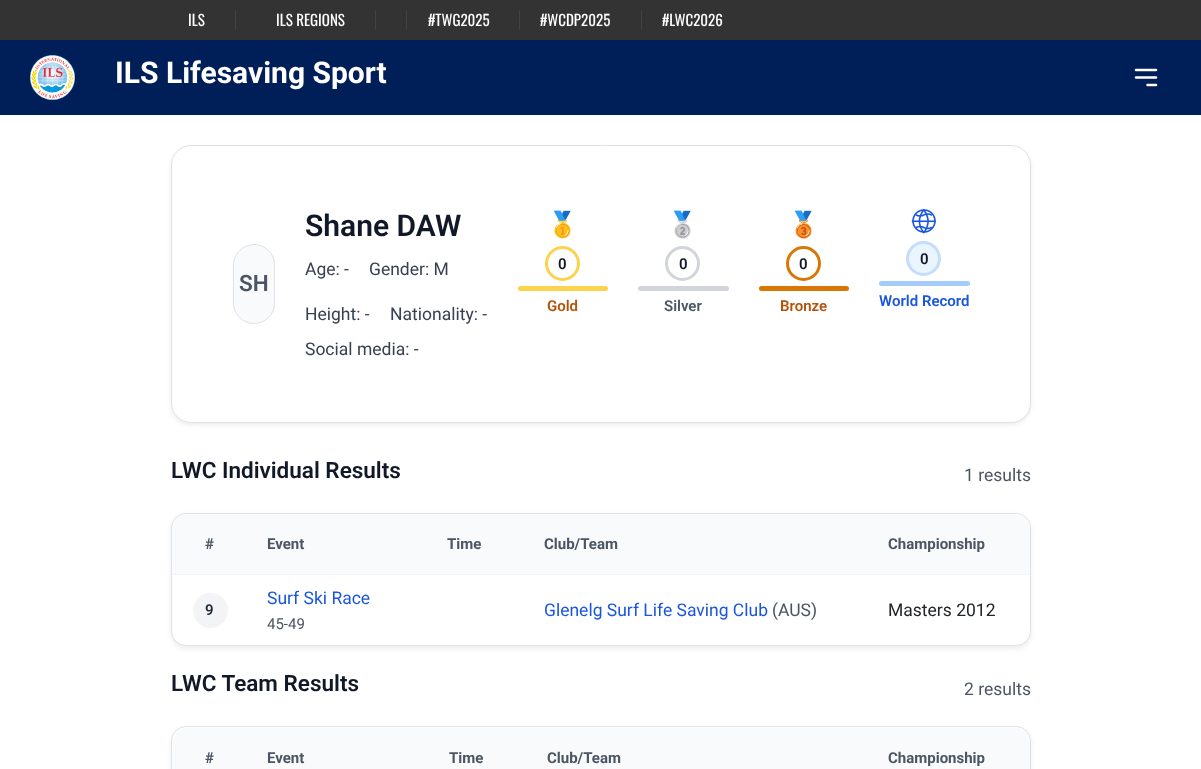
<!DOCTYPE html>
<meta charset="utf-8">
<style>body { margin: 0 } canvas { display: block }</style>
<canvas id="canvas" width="1201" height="769"></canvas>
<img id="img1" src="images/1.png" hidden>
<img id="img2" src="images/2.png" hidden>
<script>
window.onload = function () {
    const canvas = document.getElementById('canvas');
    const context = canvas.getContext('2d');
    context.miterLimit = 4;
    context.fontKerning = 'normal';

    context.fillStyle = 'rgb(255, 255, 255)';
    context.fillRect(0, 0, 1201, 769);
    context.fillStyle = 'rgb(51, 51, 51)';
    context.fillRect(0, 0, 1201, 40);
    context.fillStyle = 'rgb(66, 66, 66)';
    context.fillRect(235, 10, 1, 20);
    context.fillRect(406, 10, 1, 20);
    context.fillRect(375, 10, 1, 20);
    context.fillRect(519, 10, 1, 20);
    context.fillRect(641, 10, 1, 20);
    context.fillStyle = 'rgb(0, 30, 88)';
    context.fillRect(0, 40, 1201, 75);
    context.drawImage(document.getElementById('img1'), 30, 55, 45, 45);
    context.beginPath();
    context.moveTo(1136, 70);
    context.lineTo(1156, 70);
    context.moveTo(1136, 77.5);
    context.lineTo(1156, 77.5);
    context.moveTo(1147.5, 85);
    context.lineTo(1156, 85);
    context.strokeStyle = 'rgb(255, 255, 255)';
    context.lineWidth = 2.5;
    context.lineCap = 'round';
    context.lineJoin = 'round';
    context.stroke();
    context.fillStyle = 'rgba(0, 0, 0, 0.07)';
    context.filter = 'blur(2.5px)';
    context.beginPath();
    context.roundRect(171, 148, 860, 277, 20);
    context.fill();
    context.filter = 'none';
    context.fillStyle = 'rgb(255, 255, 255)';
    context.beginPath();
    context.roundRect(171.5, 145.5, 859, 277, 19.5);
    context.fill();
    context.strokeStyle = 'rgb(222, 226, 230)';
    context.lineWidth = 1;
    context.lineJoin = 'miter';
    context.stroke();
    context.fillStyle = 'rgb(249, 250, 251)';
    context.beginPath();
    context.roundRect(233.5, 244.5, 41, 79, 20.5);
    context.fill();
    context.stroke();
    context.beginPath();
    context.arc(562.5, 263.5, 16, 0, 2 * Math.PI);
    context.strokeStyle = 'rgb(252, 211, 77)';
    context.lineWidth = 3;
    context.stroke();
    context.fillStyle = 'rgb(252, 211, 77)';
    context.beginPath();
    context.roundRect(518, 286, 90, 5, 2.5);
    context.fill();
    context.beginPath();
    context.arc(682.5, 263.5, 16, 0, 2 * Math.PI);
    context.strokeStyle = 'rgb(209, 213, 219)';
    context.stroke();
    context.fillStyle = 'rgb(209, 213, 219)';
    context.beginPath();
    context.roundRect(638, 286, 91, 5, 2.5);
    context.fill();
    context.beginPath();
    context.arc(803.5, 263.5, 16, 0, 2 * Math.PI);
    context.strokeStyle = 'rgb(217, 119, 6)';
    context.stroke();
    context.fillStyle = 'rgb(217, 119, 6)';
    context.beginPath();
    context.roundRect(759, 286, 90, 5, 2.5);
    context.fill();
    context.drawImage(document.getElementById('img2'), 911, 208, 25, 26);
    context.fillStyle = 'rgb(235, 245, 255)';
    context.beginPath();
    context.arc(923.5, 258.5, 16, 0, 2 * Math.PI);
    context.fill();
    context.strokeStyle = 'rgb(195, 221, 253)';
    context.stroke();
    context.fillStyle = 'rgb(164, 202, 254)';
    context.beginPath();
    context.roundRect(879, 281, 91, 5, 2.5);
    context.fill();
    context.fillStyle = 'rgba(0, 0, 0, 0.07)';
    context.filter = 'blur(2.5px)';
    context.beginPath();
    context.roundRect(171, 515, 860, 134, 15);
    context.fill();
    context.filter = 'none';
    context.fillStyle = 'rgb(255, 255, 255)';
    context.beginPath();
    context.roundRect(171.5, 513.5, 859, 132, 14.5);
    context.fill();
    context.strokeStyle = 'rgb(222, 226, 230)';
    context.lineWidth = 1;
    context.stroke();
    context.fillStyle = 'rgb(249, 250, 251)';
    context.beginPath();
    context.roundRect(173, 514, 857, 61, [14, 14, 0, 0]);
    context.fill();
    context.fillStyle = 'rgb(243, 244, 246)';
    context.fillRect(173, 574, 857, 1);
    context.beginPath();
    context.arc(210.5, 610.5, 17.5, 0, 2 * Math.PI);
    context.fill();
    context.fillStyle = 'rgba(0, 0, 0, 0.07)';
    context.filter = 'blur(2.5px)';
    context.beginPath();
    context.roundRect(171, 729, 860, 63, 15);
    context.fill();
    context.filter = 'none';
    context.fillStyle = 'rgb(255, 255, 255)';
    context.beginPath();
    context.roundRect(171.5, 726.5, 859, 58, 14.5);
    context.fill();
    context.stroke();
    context.fillStyle = 'rgb(249, 250, 251)';
    context.beginPath();
    context.moveTo(187, 728);
    context.lineTo(1016, 728);
    context.bezierCurveTo(1023.5, 728, 1030, 734.5, 1030, 742);
    context.lineTo(1030, 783);
    context.lineTo(173, 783);
    context.lineTo(173, 742);
    context.bezierCurveTo(173, 734.5, 179.5, 728, 187, 728);
    context.closePath();
    context.fill();
    context.font = '15px Oswald';
    context.fillStyle = 'rgb(255, 255, 255)';
    context.fillText('ILS', 188, 26);
    context.fillText('ILS REGIONS', 276, 26);
    context.fillText('#TWG2025', 428, 26);
    context.fillText('#WCDP2025', 540, 26);
    context.fillText('#LWC2026', 662, 26);
    context.font = 'bold 30px Roboto';
    context.fillText('ILS Lifesaving Sport', 115, 83);
    context.font = '600 22.5px Roboto';
    context.fillStyle = 'rgb(75, 85, 99)';
    context.fillText('SH', 239, 291);
    context.font = '600 30px Roboto';
    context.fillStyle = 'rgb(17, 24, 39)';
    context.fillText('Shane DAW', 305, 236);
    context.font = '17.5px Roboto';
    context.fillStyle = 'rgb(55, 65, 81)';
    context.fillText('Age: -', 305, 275);
    context.fillText('Gender: M', 369, 275);
    context.fillText('Height: -', 305, 320);
    context.fillText('Nationality: -', 390, 320);
    context.fillText('Social media: -', 305, 355);
    context.font = '25px Noto Color Emoji';
    context.fillStyle = 'rgb(33, 37, 41)';
    context.fillText('🥇', 547, 233);
    context.font = '600 15px Roboto';
    context.fillStyle = 'rgb(17, 24, 39)';
    context.fillText('0', 558, 269);
    context.fillStyle = 'rgb(180, 83, 9)';
    context.fillText('Gold', 547, 311);
    context.font = '25px Noto Color Emoji';
    context.fillStyle = 'rgb(33, 37, 41)';
    context.fillText('🥈', 667, 233);
    context.font = '600 15px Roboto';
    context.fillStyle = 'rgb(17, 24, 39)';
    context.fillText('0', 679, 269);
    context.fillStyle = 'rgb(75, 85, 99)';
    context.fillText('Silver', 664, 311);
    context.font = '25px Noto Color Emoji';
    context.fillStyle = 'rgb(33, 37, 41)';
    context.fillText('🥉', 788, 233);
    context.font = '600 15px Roboto';
    context.fillStyle = 'rgb(17, 24, 39)';
    context.fillText('0', 799, 269);
    context.fillStyle = 'rgb(180, 83, 9)';
    context.fillText('Bronze', 780, 311);
    context.fillStyle = 'rgb(17, 24, 39)';
    context.fillText('0', 920, 264);
    context.fillStyle = 'rgb(26, 86, 219)';
    context.fillText('World Record', 879, 306);
    context.font = '600 22.5px Roboto';
    context.fillStyle = 'rgb(17, 24, 39)';
    context.fillText('LWC Individual Results', 171, 478);
    context.font = '17.5px Roboto';
    context.fillStyle = 'rgb(75, 85, 99)';
    context.fillText('1 results', 964, 481);
    context.font = 'bold 15px Roboto';
    context.fillText('#', 205, 549);
    context.fillText('Event', 267, 549);
    context.fillText('Time', 447, 549);
    context.fillText('Club/Team', 544, 549);
    context.fillText('Championship', 888, 549);
    context.font = '600 15px Roboto';
    context.fillStyle = 'rgb(31, 41, 55)';
    context.fillText('9', 205, 615);
    context.font = '17.5px Roboto';
    context.fillStyle = 'rgb(26, 86, 219)';
    context.fillText('Surf Ski Race', 267, 604);
    context.font = '15px Roboto';
    context.fillStyle = 'rgb(75, 85, 99)';
    context.fillText('45-49', 267, 629);
    context.font = '17.5px Roboto';
    context.fillStyle = 'rgb(26, 86, 219)';
    context.fillText('Glenelg Surf Life Saving Club', 544, 616);
    context.fillStyle = 'rgb(75, 85, 99)';
    context.fillText('(AUS)', 772, 616);
    context.fillStyle = 'rgb(33, 37, 41)';
    context.fillText('Masters 2012', 888, 616);
    context.font = '600 22.5px Roboto';
    context.fillStyle = 'rgb(17, 24, 39)';
    context.fillText('LWC Team Results', 171, 691);
    context.font = '17.5px Roboto';
    context.fillStyle = 'rgb(75, 85, 99)';
    context.fillText('2 results', 964, 695);
    context.font = 'bold 15px Roboto';
    context.fillText('#', 205, 763);
    context.fillText('Event', 267, 763);
    context.fillText('Time', 449, 763);
    context.fillText('Club/Team', 547, 763);
    context.fillText('Championship', 888, 763);
};
</script>
